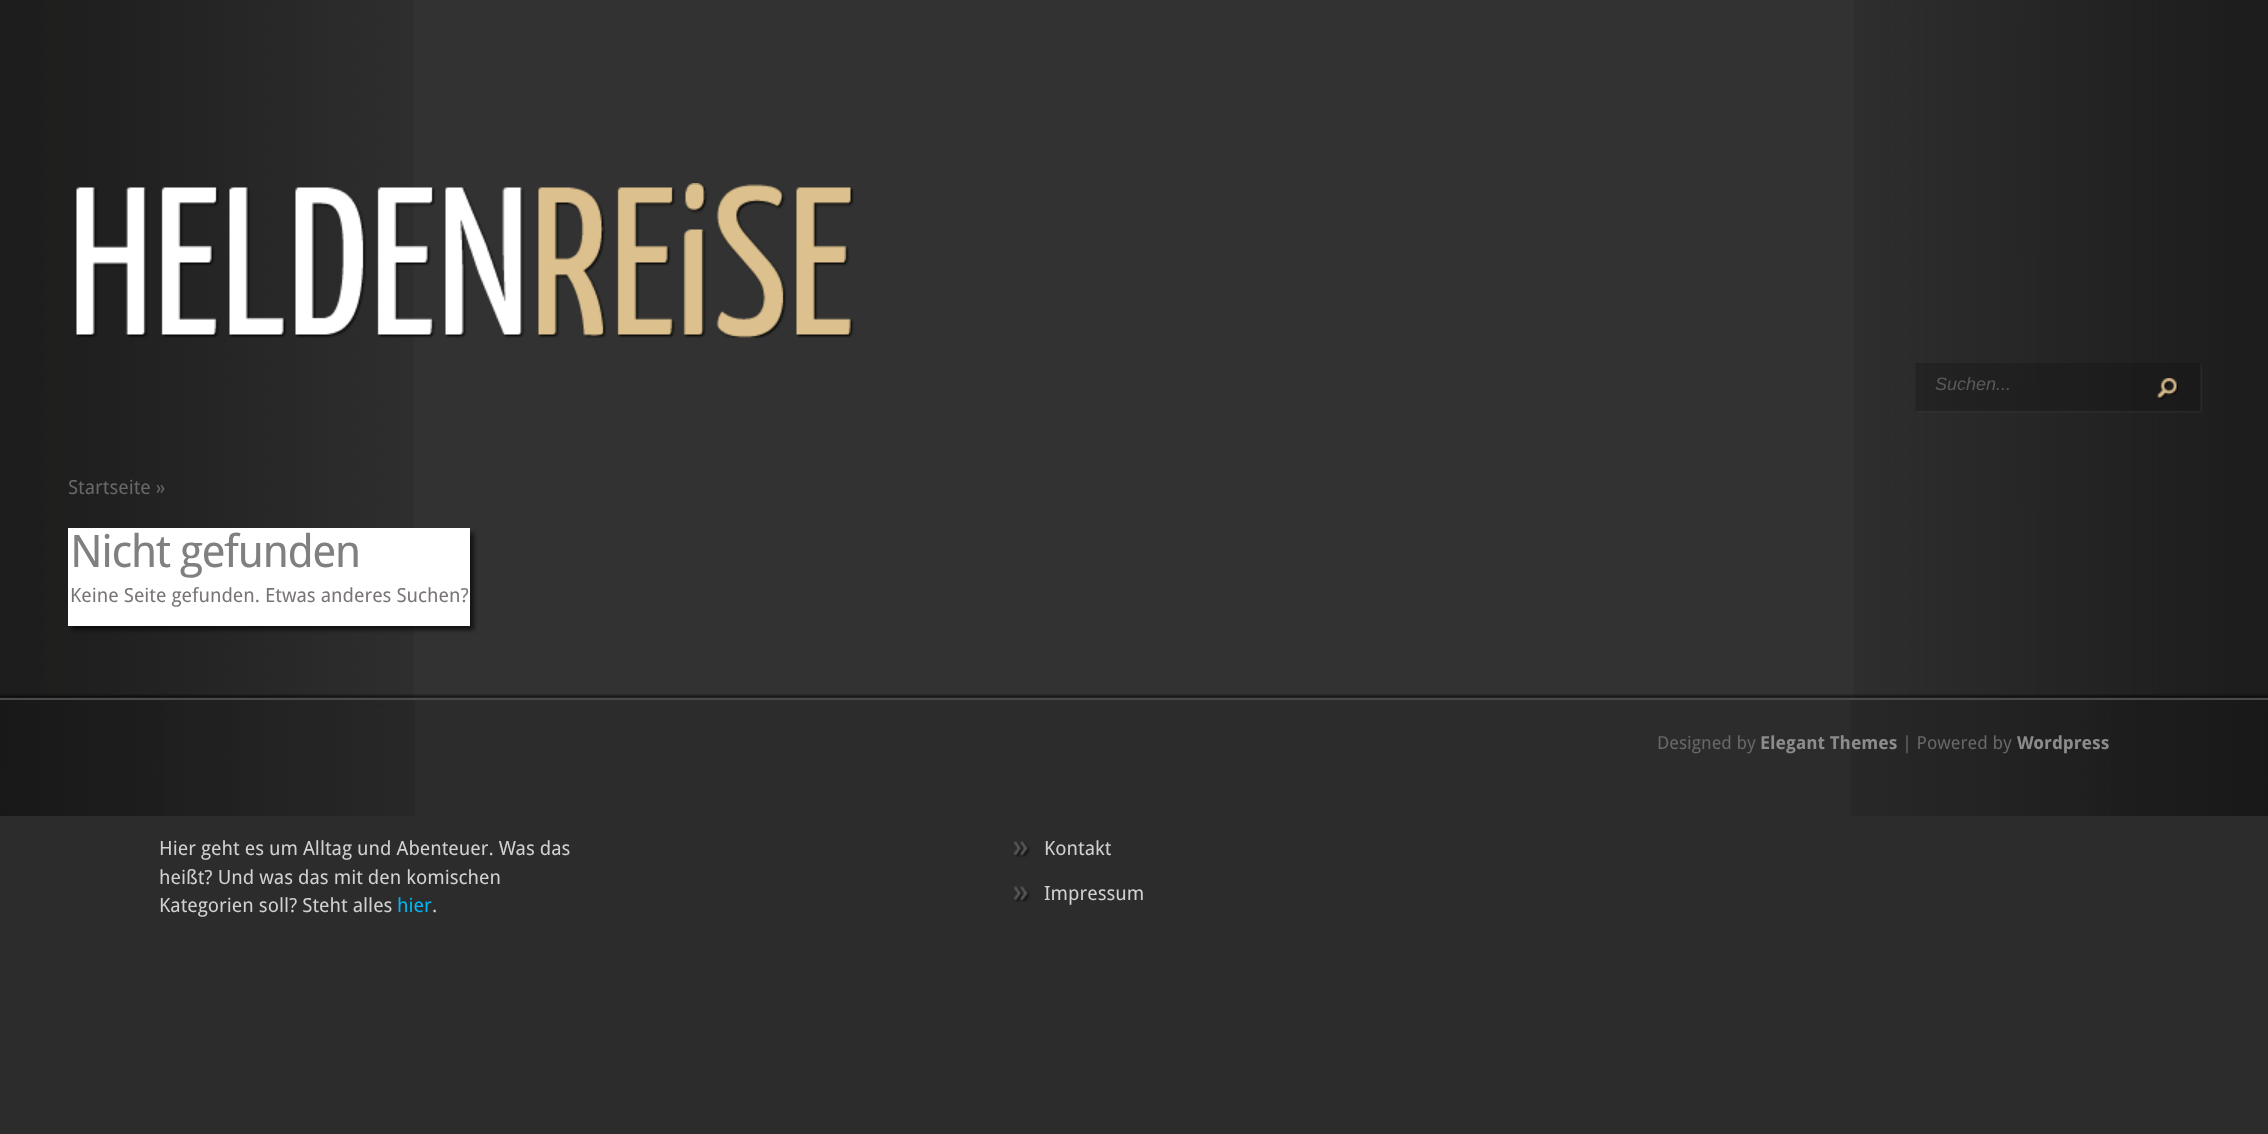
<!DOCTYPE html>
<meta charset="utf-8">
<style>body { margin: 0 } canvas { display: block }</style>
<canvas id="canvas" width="2268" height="1134"></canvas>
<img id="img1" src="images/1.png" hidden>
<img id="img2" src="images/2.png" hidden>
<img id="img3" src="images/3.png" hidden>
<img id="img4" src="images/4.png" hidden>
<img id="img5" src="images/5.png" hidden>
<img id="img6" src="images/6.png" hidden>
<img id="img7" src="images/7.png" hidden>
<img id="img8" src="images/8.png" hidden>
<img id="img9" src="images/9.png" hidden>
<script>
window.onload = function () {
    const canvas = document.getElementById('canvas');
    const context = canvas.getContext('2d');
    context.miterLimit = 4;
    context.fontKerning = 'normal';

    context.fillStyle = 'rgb(44, 44, 44)';
    context.fillRect(0, 0, 2268, 1134);
    context.fillStyle = 'rgb(50, 50, 50)';
    context.fillRect(414, 0, 1440, 698);
    context.drawImage(document.getElementById('img1'), 0, 0, 414, 698);
    context.drawImage(document.getElementById('img2'), 1854, 0, 414, 698);
    context.drawImage(document.getElementById('img3'), 76, 183, 778, 155);
    context.drawImage(document.getElementById('img4'), 1915, 363, 287, 50);
    context.drawImage(document.getElementById('img5'), 2157, 378, 21, 21);
    context.fillStyle = 'rgba(0, 0, 0, 0.6)';
    context.filter = 'blur(2px)';
    context.beginPath();
    context.rect(72, 533, 402, 97);
    context.fill();
    context.filter = 'none';
    context.fillStyle = 'rgb(255, 255, 255)';
    context.fillRect(68, 528, 402, 98);
    context.drawImage(document.getElementById('img6'), 0, 694, 2268, 4);
    context.fillStyle = 'rgb(74, 74, 74)';
    context.fillRect(0, 698, 2268, 2);
    context.drawImage(document.getElementById('img7'), 0, 700, 415, 116);
    context.drawImage(document.getElementById('img8'), 1851, 700, 417, 116);
    context.drawImage(document.getElementById('img9'), 1014, 841, 16, 16);
    context.drawImage(document.getElementById('img9'), 1014, 886, 16, 16);
    context.font = 'italic 18px Liberation Sans';
    context.fillStyle = 'rgb(89, 89, 89)';
    context.fillText('Suchen...', 1935, 390);
    context.font = '19.5px Droid Sans';
    context.fillStyle = 'rgb(104, 104, 104)';
    context.fillText('Startseite »', 68, 494);
    context.letterSpacing = '-1.5px';
    context.font = '45px Droid Sans';
    context.fillStyle = 'rgb(128, 128, 128)';
    context.fillText('Nicht gefunden', 70, 567);
    context.letterSpacing = '0px';
    context.font = '19.5px Droid Sans';
    context.fillStyle = 'rgb(122, 117, 117)';
    context.fillText('Keine Seite gefunden. Etwas anderes Suchen?', 70, 602);
    context.font = '18px Droid Sans';
    context.fillStyle = 'rgb(104, 104, 104)';
    context.fillText('Designed by', 1657, 749);
    context.font = 'bold 18px Droid Sans';
    context.fillStyle = 'rgb(140, 140, 140)';
    context.fillText('Elegant Themes', 1760, 749);
    context.font = '18px Droid Sans';
    context.fillStyle = 'rgb(104, 104, 104)';
    context.fillText('| Powered by', 1902, 749);
    context.font = 'bold 18px Droid Sans';
    context.fillStyle = 'rgb(140, 140, 140)';
    context.fillText('Wordpress', 2017, 749);
    context.font = '19.5px Droid Sans';
    context.fillStyle = 'rgb(209, 209, 209)';
    context.fillText('Hier geht es um Alltag und Abenteuer. Was das', 159, 855);
    context.fillText('heißt? Und was das mit den komischen', 159, 884);
    context.fillText('Kategorien soll? Steht alles', 159, 912);
    context.fillStyle = 'rgb(0, 183, 243)';
    context.fillText('hier', 397, 912);
    context.fillStyle = 'rgb(209, 209, 209)';
    context.fillText('.', 432, 912);
    context.fillText('Kontakt', 1044, 855);
    context.fillText('Impressum', 1044, 900);
};
</script>
